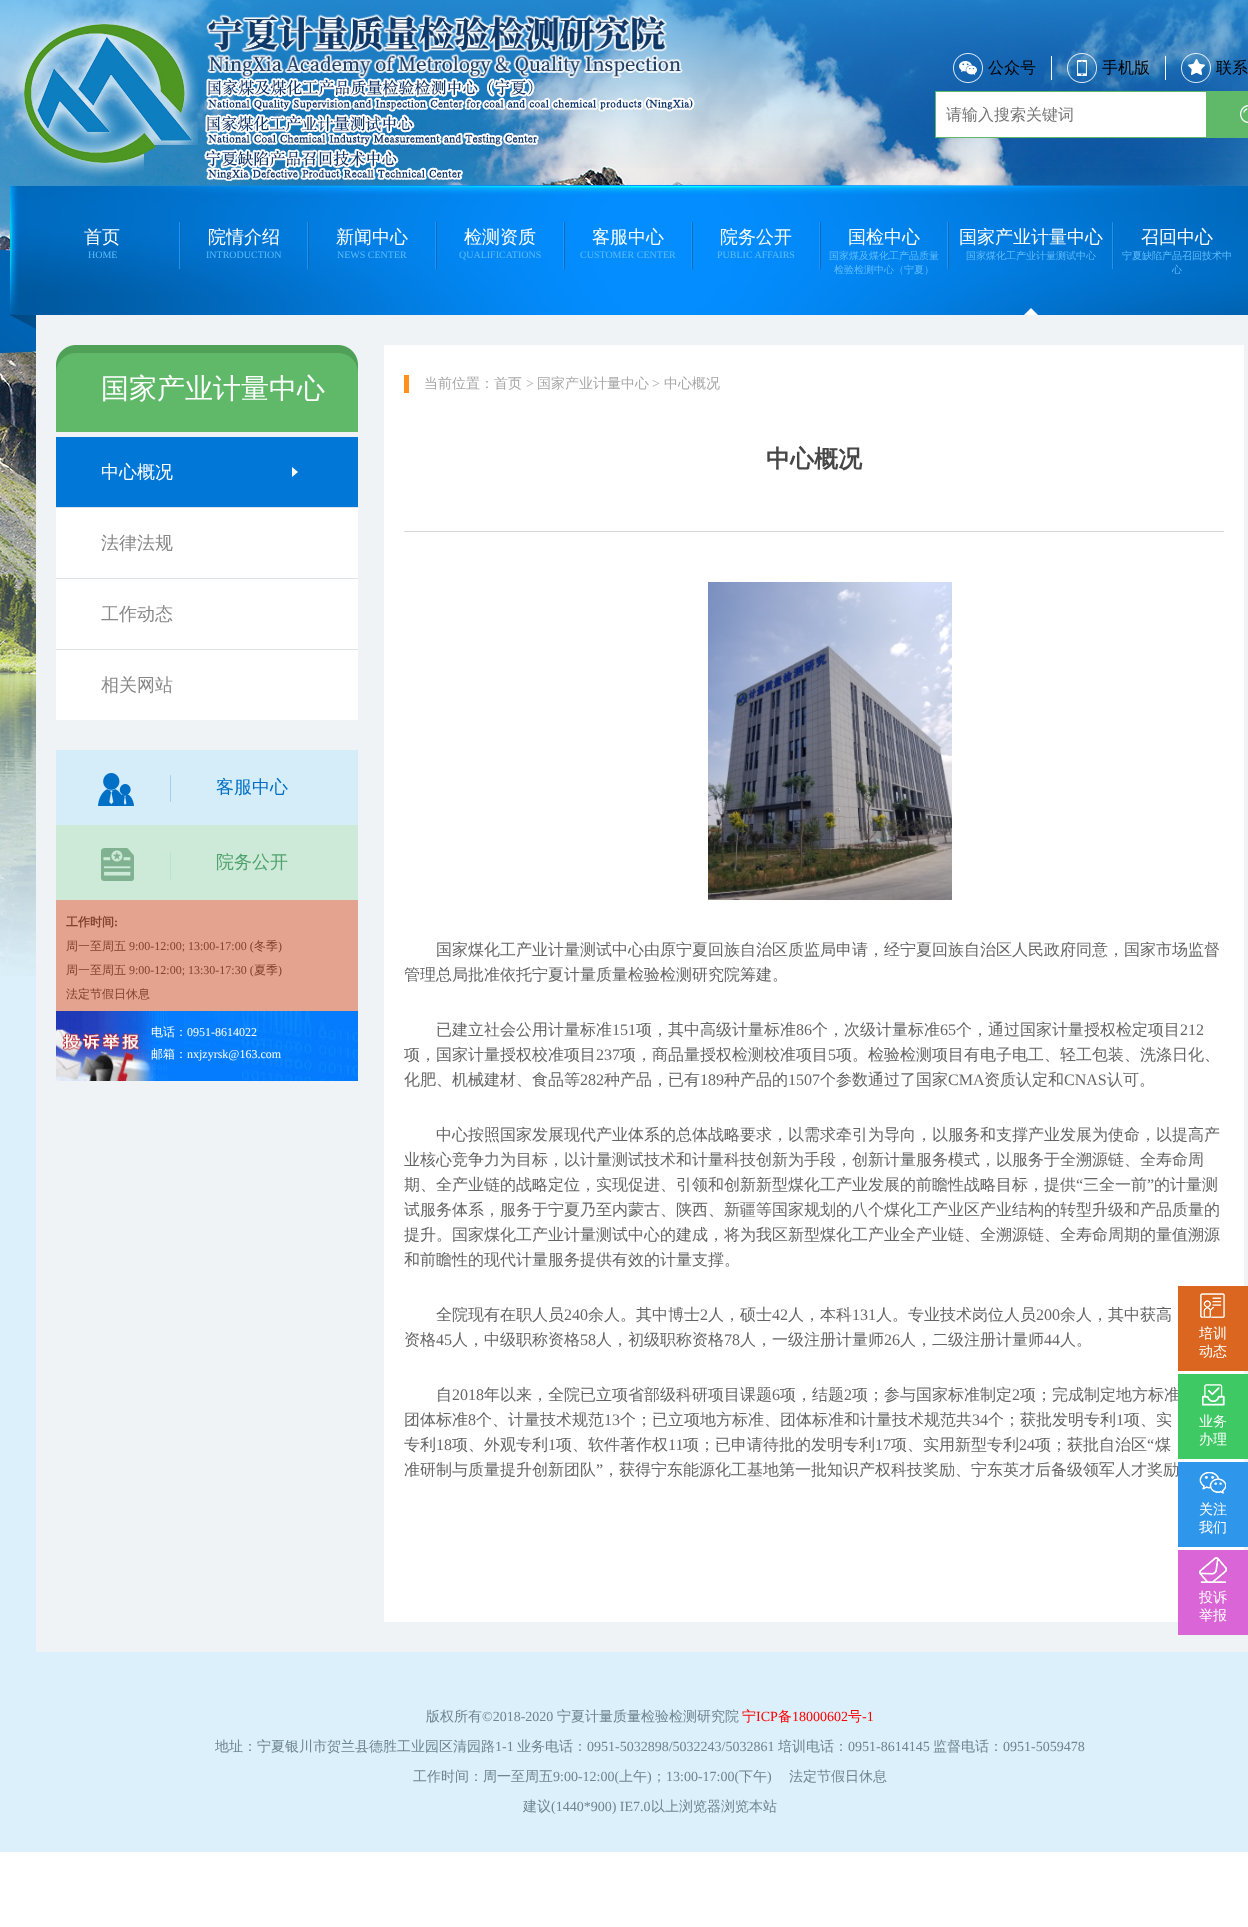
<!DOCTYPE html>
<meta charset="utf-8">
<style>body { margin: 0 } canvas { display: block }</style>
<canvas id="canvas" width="1248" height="1927"></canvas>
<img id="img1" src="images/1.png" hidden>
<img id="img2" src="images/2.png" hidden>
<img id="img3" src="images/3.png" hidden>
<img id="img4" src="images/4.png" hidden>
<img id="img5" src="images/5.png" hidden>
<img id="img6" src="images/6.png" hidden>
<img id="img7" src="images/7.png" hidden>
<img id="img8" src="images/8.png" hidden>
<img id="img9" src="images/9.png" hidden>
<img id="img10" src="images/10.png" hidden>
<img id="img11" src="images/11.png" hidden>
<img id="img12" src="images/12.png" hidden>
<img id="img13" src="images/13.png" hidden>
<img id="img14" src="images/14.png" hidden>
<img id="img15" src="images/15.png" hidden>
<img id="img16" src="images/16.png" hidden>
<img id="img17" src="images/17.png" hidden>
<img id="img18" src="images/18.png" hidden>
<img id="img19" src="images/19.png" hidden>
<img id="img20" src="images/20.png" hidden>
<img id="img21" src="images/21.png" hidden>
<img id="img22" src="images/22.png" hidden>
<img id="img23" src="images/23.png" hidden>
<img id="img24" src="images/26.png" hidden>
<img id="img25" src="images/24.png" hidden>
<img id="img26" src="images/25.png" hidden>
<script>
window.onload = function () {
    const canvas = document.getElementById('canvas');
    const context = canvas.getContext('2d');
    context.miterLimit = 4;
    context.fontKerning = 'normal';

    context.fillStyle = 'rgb(255, 255, 255)';
    context.fillRect(0, 0, 1248, 1927);
    context.fillStyle = 'rgb(219, 240, 250)';
    context.fillRect(0, 976, 1248, 876);
    context.drawImage(document.getElementById('img1'), 0, 0, 1248, 976);
    context.drawImage(document.getElementById('img2'), 10, 10, 685, 171);
    context.drawImage(document.getElementById('img3'), 953, 53, 30, 30);
    context.fillStyle = 'rgb(255, 255, 255)';
    context.fillRect(1051, 56, 1, 24);
    context.drawImage(document.getElementById('img4'), 1067, 53, 30, 30);
    context.fillRect(1165, 56, 1, 24);
    context.drawImage(document.getElementById('img5'), 1181, 53, 30, 30);
    context.beginPath();
    context.rect(935.5, 91.5, 271, 46);
    context.fill();
    context.strokeStyle = 'rgb(95, 185, 105)';
    context.stroke();
    context.drawImage(document.getElementById('img6'), 1207, 91, 41, 47);
    context.drawImage(document.getElementById('img7'), 0, 185, 1248, 169);
    context.drawImage(document.getElementById('img8'), 179, 222, 2, 47);
    context.drawImage(document.getElementById('img9'), 307, 222, 2, 47);
    context.drawImage(document.getElementById('img10'), 435, 222, 2, 47);
    context.drawImage(document.getElementById('img11'), 563, 222, 2, 47);
    context.drawImage(document.getElementById('img12'), 691, 222, 2, 47);
    context.drawImage(document.getElementById('img13'), 819, 222, 2, 47);
    context.drawImage(document.getElementById('img14'), 947, 222, 2, 47);
    context.drawImage(document.getElementById('img15'), 1112, 222, 2, 47);
    context.drawImage(document.getElementById('img16'), 1024, 308, 14, 7);
    context.fillStyle = 'rgb(239, 243, 246)';
    context.fillRect(36, 315, 1212, 1337);
    context.drawImage(document.getElementById('img17'), 56, 345, 302, 87);
    context.fillStyle = 'rgb(1, 120, 215)';
    context.fillRect(56, 437, 302, 70);
    context.fillStyle = 'rgb(222, 227, 231)';
    context.fillRect(56, 507, 302, 1);
    context.drawImage(document.getElementById('img18'), 292, 467, 6, 10);
    context.fillStyle = 'rgb(255, 255, 255)';
    context.fillRect(56, 508, 302, 70);
    context.fillStyle = 'rgb(222, 227, 231)';
    context.fillRect(56, 578, 302, 1);
    context.fillStyle = 'rgb(255, 255, 255)';
    context.fillRect(56, 579, 302, 70);
    context.fillStyle = 'rgb(222, 227, 231)';
    context.fillRect(56, 649, 302, 1);
    context.fillStyle = 'rgb(255, 255, 255)';
    context.fillRect(56, 650, 302, 70);
    context.fillStyle = 'rgb(212, 237, 249)';
    context.fillRect(56, 750, 302, 75);
    context.drawImage(document.getElementById('img19'), 98, 773, 73, 33);
    context.fillStyle = 'rgb(205, 233, 215)';
    context.fillRect(56, 825, 302, 75);
    context.drawImage(document.getElementById('img20'), 101, 848, 70, 33);
    context.fillStyle = 'rgb(228, 163, 143)';
    context.fillRect(56, 900, 302, 111);
    context.drawImage(document.getElementById('img21'), 56, 1011, 302, 70);
    context.fillStyle = 'rgb(255, 255, 255)';
    context.fillRect(384, 345, 860, 1277);
    context.fillStyle = 'rgb(255, 146, 29)';
    context.fillRect(404, 375, 5, 18);
    context.fillStyle = 'rgb(214, 214, 214)';
    context.fillRect(404, 531, 820, 1);
    context.drawImage(document.getElementById('img22'), 708, 582, 244, 318);
    context.fillStyle = 'rgb(219, 102, 31)';
    context.fillRect(1178, 1286, 70, 85);
    context.drawImage(document.getElementById('img23'), 1200, 1293, 25, 25);
    context.fillStyle = 'rgb(218, 101, 214)';
    context.fillRect(1178, 1550, 70, 85);
    context.drawImage(document.getElementById('img24'), 1199, 1557, 28, 26);
    context.font = '500 16px WenQuanYi Zen Hei';
    context.fillStyle = 'rgb(0, 0, 0)';
    context.fillText('公众号', 988, 73);
    context.fillText('手机版', 1102, 73);
    context.fillText('联系', 1216, 73);
    context.fillStyle = 'rgb(117, 117, 117)';
    context.fillText('请输入搜索关键词', 946, 120);
    context.font = '500 18px WenQuanYi Zen Hei';
    context.fillStyle = 'rgb(255, 255, 255)';
    context.fillText('首页', 84, 243);
    context.font = '10px Liberation Serif';
    context.fillStyle = 'rgb(96, 188, 253)';
    context.fillText('HOME', 88, 258);
    context.font = '500 18px WenQuanYi Zen Hei';
    context.fillStyle = 'rgb(255, 255, 255)';
    context.fillText('院情介绍', 208, 243);
    context.font = '10px Liberation Serif';
    context.fillStyle = 'rgb(96, 188, 253)';
    context.fillText('INTRODUCTION', 206, 258);
    context.font = '500 18px WenQuanYi Zen Hei';
    context.fillStyle = 'rgb(255, 255, 255)';
    context.fillText('新闻中心', 336, 243);
    context.font = '10px Liberation Serif';
    context.fillStyle = 'rgb(96, 188, 253)';
    context.fillText('NEWS CENTER', 337, 258);
    context.font = '500 18px WenQuanYi Zen Hei';
    context.fillStyle = 'rgb(255, 255, 255)';
    context.fillText('检测资质', 464, 243);
    context.font = '10px Liberation Serif';
    context.fillStyle = 'rgb(96, 188, 253)';
    context.fillText('QUALIFICATIONS', 459, 258);
    context.font = '500 18px WenQuanYi Zen Hei';
    context.fillStyle = 'rgb(255, 255, 255)';
    context.fillText('客服中心', 592, 243);
    context.font = '10px Liberation Serif';
    context.fillStyle = 'rgb(96, 188, 253)';
    context.fillText('CUSTOMER CENTER', 580, 258);
    context.font = '500 18px WenQuanYi Zen Hei';
    context.fillStyle = 'rgb(255, 255, 255)';
    context.fillText('院务公开', 720, 243);
    context.font = '10px Liberation Serif';
    context.fillStyle = 'rgb(96, 188, 253)';
    context.fillText('PUBLIC AFFAIRS', 717, 258);
    context.font = '500 18px WenQuanYi Zen Hei';
    context.fillStyle = 'rgb(255, 255, 255)';
    context.fillText('国检中心', 848, 243);
    context.font = '500 10px WenQuanYi Zen Hei';
    context.fillStyle = 'rgb(96, 188, 253)';
    context.fillText('国家煤及煤化工产品质量', 829, 259);
    context.fillText('检验检测中心（宁夏）', 834, 273);
    context.font = '500 18px WenQuanYi Zen Hei';
    context.fillStyle = 'rgb(255, 255, 255)';
    context.fillText('国家产业计量中心', 959, 243);
    context.font = '500 10px WenQuanYi Zen Hei';
    context.fillStyle = 'rgb(96, 188, 253)';
    context.fillText('国家煤化工产业计量测试中心', 966, 259);
    context.font = '500 18px WenQuanYi Zen Hei';
    context.fillStyle = 'rgb(255, 255, 255)';
    context.fillText('召回中心', 1141, 243);
    context.font = '500 10px WenQuanYi Zen Hei';
    context.fillStyle = 'rgb(96, 188, 253)';
    context.fillText('宁夏缺陷产品召回技术中', 1122, 259);
    context.fillText('心', 1172, 273);
    context.font = '500 28px WenQuanYi Zen Hei';
    context.fillStyle = 'rgb(255, 255, 255)';
    context.fillText('国家产业计量中心', 101, 398);
    context.font = '500 18px WenQuanYi Zen Hei';
    context.fillText('中心概况', 101, 478);
    context.fillStyle = 'rgb(136, 136, 136)';
    context.fillText('法律法规', 101, 549);
    context.fillText('工作动态', 101, 620);
    context.fillText('相关网站', 101, 691);
    context.fillStyle = 'rgb(0, 111, 198)';
    context.fillText('客服中心', 216, 793);
    context.fillStyle = 'rgb(79, 162, 109)';
    context.fillText('院务公开', 216, 868);
    context.font = 'bold 12px WenQuanYi Zen Hei';
    context.fillStyle = 'rgb(128, 65, 46)';
    context.fillText('工作时间', 66, 926);
    context.font = 'bold 12px Liberation Serif';
    context.fillText(':', 114, 926);
    context.font = '500 12px WenQuanYi Zen Hei';
    context.fillText('周一至周五', 66, 950);
    context.font = '12px Liberation Serif';
    context.fillText('9:00-12:00; 13:00-17:00 (', 129, 950);
    context.font = '500 12px WenQuanYi Zen Hei';
    context.fillText('冬季', 254, 950);
    context.font = '12px Liberation Serif';
    context.fillText(')', 278, 950);
    context.font = '500 12px WenQuanYi Zen Hei';
    context.fillText('周一至周五', 66, 974);
    context.font = '12px Liberation Serif';
    context.fillText('9:00-12:00; 13:30-17:30 (', 129, 974);
    context.font = '500 12px WenQuanYi Zen Hei';
    context.fillText('夏季', 254, 974);
    context.font = '12px Liberation Serif';
    context.fillText(')', 278, 974);
    context.font = '500 12px WenQuanYi Zen Hei';
    context.fillText('法定节假日休息', 66, 998);
    context.fillStyle = 'rgb(255, 255, 255)';
    context.fillText('电话：', 151, 1036);
    context.font = '12px Liberation Serif';
    context.fillText('0951-8614022', 187, 1036);
    context.font = '500 12px WenQuanYi Zen Hei';
    context.fillText('邮箱：', 151, 1058);
    context.font = '12px Liberation Serif';
    context.fillText('nxjzyrsk@163.com', 187, 1058);
    context.font = '500 14px WenQuanYi Zen Hei';
    context.fillStyle = 'rgb(167, 167, 167)';
    context.fillText('当前位置：首页', 424, 388);
    context.font = '14px Liberation Serif';
    context.fillText('>', 526, 388);
    context.font = '500 14px WenQuanYi Zen Hei';
    context.fillText('国家产业计量中心', 537, 388);
    context.font = '14px Liberation Serif';
    context.fillText('>', 652, 388);
    context.font = '500 14px WenQuanYi Zen Hei';
    context.fillText('中心概况', 664, 388);
    context.font = 'bold 24px WenQuanYi Zen Hei';
    context.fillStyle = 'rgb(70, 70, 70)';
    context.fillText('中心概况', 766, 467);
    context.font = '500 16px WenQuanYi Zen Hei';
    context.fillStyle = 'rgb(101, 101, 101)';
    context.fillText('国家煤化工产业计量测试中心由原宁夏回族自治区质监局申请，经宁夏回族自治区人民政府同意，国家市场监督', 436, 955);
    context.fillText('管理总局批准依托宁夏计量质量检验检测研究院筹建。', 404, 980);
    context.fillText('已建立社会公用计量标准', 436, 1035);
    context.font = '16px Liberation Serif';
    context.fillText('151', 612, 1035);
    context.font = '500 16px WenQuanYi Zen Hei';
    context.fillText('项，其中高级计量标准', 636, 1035);
    context.font = '16px Liberation Serif';
    context.fillText('86', 796, 1035);
    context.font = '500 16px WenQuanYi Zen Hei';
    context.fillText('个，次级计量标准', 812, 1035);
    context.font = '16px Liberation Serif';
    context.fillText('65', 940, 1035);
    context.font = '500 16px WenQuanYi Zen Hei';
    context.fillText('个，通过国家计量授权检定项目', 956, 1035);
    context.font = '16px Liberation Serif';
    context.fillText('212', 1180, 1035);
    context.font = '500 16px WenQuanYi Zen Hei';
    context.fillText('项，国家计量授权校准项目', 404, 1060);
    context.font = '16px Liberation Serif';
    context.fillText('237', 596, 1060);
    context.font = '500 16px WenQuanYi Zen Hei';
    context.fillText('项，商品量授权检测校准项目', 620, 1060);
    context.font = '16px Liberation Serif';
    context.fillText('5', 828, 1060);
    context.font = '500 16px WenQuanYi Zen Hei';
    context.fillText('项。检验检测项目有电子电工、轻工包装、洗涤日化、', 836, 1060);
    context.fillText('化肥、机械建材、食品等', 404, 1085);
    context.font = '16px Liberation Serif';
    context.fillText('282', 580, 1085);
    context.font = '500 16px WenQuanYi Zen Hei';
    context.fillText('种产品，已有', 604, 1085);
    context.font = '16px Liberation Serif';
    context.fillText('189', 700, 1085);
    context.font = '500 16px WenQuanYi Zen Hei';
    context.fillText('种产品的', 724, 1085);
    context.font = '16px Liberation Serif';
    context.fillText('1507', 788, 1085);
    context.font = '500 16px WenQuanYi Zen Hei';
    context.fillText('个参数通过了国家', 820, 1085);
    context.font = '16px Liberation Serif';
    context.fillText('CMA', 948, 1085);
    context.font = '500 16px WenQuanYi Zen Hei';
    context.fillText('资质认定和', 984, 1085);
    context.font = '16px Liberation Serif';
    context.fillText('CNAS', 1064, 1085);
    context.font = '500 16px WenQuanYi Zen Hei';
    context.fillText('认可。', 1107, 1085);
    context.fillText('中心按照国家发展现代产业体系的总体战略要求，以需求牵引为导向，以服务和支撑产业发展为使命，以提高产', 436, 1140);
    context.fillText('业核心竞争力为目标，以计量测试技术和计量科技创新为手段，创新计量服务模式，以服务于全溯源链、全寿命周', 404, 1165);
    context.fillText('期、全产业链的战略定位，实现促进、引领和创新新型煤化工产业发展的前瞻性战略目标，提供', 404, 1190);
    context.font = '16px Liberation Serif';
    context.fillText('“', 1076, 1190);
    context.font = '500 16px WenQuanYi Zen Hei';
    context.fillText('三全一前', 1083, 1190);
    context.font = '16px Liberation Serif';
    context.fillText('”', 1147, 1190);
    context.font = '500 16px WenQuanYi Zen Hei';
    context.fillText('的计量测', 1154, 1190);
    context.fillText('试服务体系，服务于宁夏乃至内蒙古、陕西、新疆等国家规划的八个煤化工产业区产业结构的转型升级和产品质量的', 404, 1215);
    context.fillText('提升。国家煤化工产业计量测试中心的建成，将为我区新型煤化工产业全产业链、全溯源链、全寿命周期的量值溯源', 404, 1240);
    context.fillText('和前瞻性的现代计量服务提供有效的计量支撑。', 404, 1265);
    context.fillText('全院现有在职人员', 436, 1320);
    context.font = '16px Liberation Serif';
    context.fillText('240', 564, 1320);
    context.font = '500 16px WenQuanYi Zen Hei';
    context.fillText('余人。其中博士', 588, 1320);
    context.font = '16px Liberation Serif';
    context.fillText('2', 700, 1320);
    context.font = '500 16px WenQuanYi Zen Hei';
    context.fillText('人，硕士', 708, 1320);
    context.font = '16px Liberation Serif';
    context.fillText('42', 772, 1320);
    context.font = '500 16px WenQuanYi Zen Hei';
    context.fillText('人，本科', 788, 1320);
    context.font = '16px Liberation Serif';
    context.fillText('131', 852, 1320);
    context.font = '500 16px WenQuanYi Zen Hei';
    context.fillText('人。专业技术岗位人员', 876, 1320);
    context.font = '16px Liberation Serif';
    context.fillText('200', 1036, 1320);
    context.font = '500 16px WenQuanYi Zen Hei';
    context.fillText('余人，其中获高', 1060, 1320);
    context.fillText('资格', 404, 1345);
    context.font = '16px Liberation Serif';
    context.fillText('45', 436, 1345);
    context.font = '500 16px WenQuanYi Zen Hei';
    context.fillText('人，中级职称资格', 452, 1345);
    context.font = '16px Liberation Serif';
    context.fillText('58', 580, 1345);
    context.font = '500 16px WenQuanYi Zen Hei';
    context.fillText('人，初级职称资格', 596, 1345);
    context.font = '16px Liberation Serif';
    context.fillText('78', 724, 1345);
    context.font = '500 16px WenQuanYi Zen Hei';
    context.fillText('人，一级注册计量师', 740, 1345);
    context.font = '16px Liberation Serif';
    context.fillText('26', 884, 1345);
    context.font = '500 16px WenQuanYi Zen Hei';
    context.fillText('人，二级注册计量师', 900, 1345);
    context.font = '16px Liberation Serif';
    context.fillText('44', 1044, 1345);
    context.font = '500 16px WenQuanYi Zen Hei';
    context.fillText('人。', 1060, 1345);
    context.fillText('自', 436, 1400);
    context.font = '16px Liberation Serif';
    context.fillText('2018', 452, 1400);
    context.font = '500 16px WenQuanYi Zen Hei';
    context.fillText('年以来，全院已立项省部级科研项目课题', 484, 1400);
    context.font = '16px Liberation Serif';
    context.fillText('6', 772, 1400);
    context.font = '500 16px WenQuanYi Zen Hei';
    context.fillText('项，结题', 780, 1400);
    context.font = '16px Liberation Serif';
    context.fillText('2', 844, 1400);
    context.font = '500 16px WenQuanYi Zen Hei';
    context.fillText('项；参与国家标准制定', 852, 1400);
    context.font = '16px Liberation Serif';
    context.fillText('2', 1012, 1400);
    context.font = '500 16px WenQuanYi Zen Hei';
    context.fillText('项；完成制定地方标准', 1020, 1400);
    context.fillText('团体标准', 404, 1425);
    context.font = '16px Liberation Serif';
    context.fillText('8', 468, 1425);
    context.font = '500 16px WenQuanYi Zen Hei';
    context.fillText('个、计量技术规范', 476, 1425);
    context.font = '16px Liberation Serif';
    context.fillText('13', 604, 1425);
    context.font = '500 16px WenQuanYi Zen Hei';
    context.fillText('个；已立项地方标准、团体标准和计量技术规范共', 620, 1425);
    context.font = '16px Liberation Serif';
    context.fillText('34', 972, 1425);
    context.font = '500 16px WenQuanYi Zen Hei';
    context.fillText('个；获批发明专利', 988, 1425);
    context.font = '16px Liberation Serif';
    context.fillText('1', 1116, 1425);
    context.font = '500 16px WenQuanYi Zen Hei';
    context.fillText('项、实', 1124, 1425);
    context.fillText('专利', 404, 1450);
    context.font = '16px Liberation Serif';
    context.fillText('18', 436, 1450);
    context.font = '500 16px WenQuanYi Zen Hei';
    context.fillText('项、外观专利', 452, 1450);
    context.font = '16px Liberation Serif';
    context.fillText('1', 548, 1450);
    context.font = '500 16px WenQuanYi Zen Hei';
    context.fillText('项、软件著作权', 556, 1450);
    context.font = '16px Liberation Serif';
    context.fillText('11', 668, 1450);
    context.font = '500 16px WenQuanYi Zen Hei';
    context.fillText('项；已申请待批的发明专利', 683, 1450);
    context.font = '16px Liberation Serif';
    context.fillText('17', 875, 1450);
    context.font = '500 16px WenQuanYi Zen Hei';
    context.fillText('项、实用新型专利', 891, 1450);
    context.font = '16px Liberation Serif';
    context.fillText('24', 1019, 1450);
    context.font = '500 16px WenQuanYi Zen Hei';
    context.fillText('项；获批自治区', 1035, 1450);
    context.font = '16px Liberation Serif';
    context.fillText('“', 1147, 1450);
    context.font = '500 16px WenQuanYi Zen Hei';
    context.fillText('煤', 1155, 1450);
    context.fillText('准研制与质量提升创新团队', 404, 1475);
    context.font = '16px Liberation Serif';
    context.fillText('”', 596, 1475);
    context.font = '500 16px WenQuanYi Zen Hei';
    context.fillText('，获得宁东能源化工基地第一批知识产权科技奖励、宁东英才后备级领军人才奖励', 603, 1475);
    context.font = '500 14px WenQuanYi Zen Hei';
    context.fillStyle = 'rgb(110, 133, 143)';
    context.fillText('版权所有', 426, 1721);
    context.font = '14px Liberation Serif';
    context.fillText('©2018-2020', 482, 1721);
    context.font = '500 14px WenQuanYi Zen Hei';
    context.fillText('宁夏计量质量检验检测研究院', 557, 1721);
    context.fillStyle = 'rgb(255, 0, 0)';
    context.fillText('宁', 742, 1721);
    context.font = '14px Liberation Serif';
    context.fillText('ICP', 756, 1721);
    context.font = '500 14px WenQuanYi Zen Hei';
    context.fillText('备', 778, 1721);
    context.font = '14px Liberation Serif';
    context.fillText('18000602', 792, 1721);
    context.font = '500 14px WenQuanYi Zen Hei';
    context.fillText('号', 848, 1721);
    context.font = '14px Liberation Serif';
    context.fillText('-1', 862, 1721);
    context.font = '500 14px WenQuanYi Zen Hei';
    context.fillStyle = 'rgb(110, 133, 143)';
    context.fillText('地址：宁夏银川市贺兰县德胜工业园区清园路', 215, 1751);
    context.font = '14px Liberation Serif';
    context.fillText('1-1', 495, 1751);
    context.font = '500 14px WenQuanYi Zen Hei';
    context.fillText('业务电话：', 517, 1751);
    context.font = '14px Liberation Serif';
    context.fillText('0951-5032898/5032243/5032861', 587, 1751);
    context.font = '500 14px WenQuanYi Zen Hei';
    context.fillText('培训电话：', 778, 1751);
    context.font = '14px Liberation Serif';
    context.fillText('0951-8614145', 848, 1751);
    context.font = '500 14px WenQuanYi Zen Hei';
    context.fillText('监督电话：', 933, 1751);
    context.font = '14px Liberation Serif';
    context.fillText('0951-5059478', 1003, 1751);
    context.font = '500 14px WenQuanYi Zen Hei';
    context.fillText('工作时间：周一至周五', 413, 1781);
    context.font = '14px Liberation Serif';
    context.fillText('9:00-12:00(', 553, 1781);
    context.font = '500 14px WenQuanYi Zen Hei';
    context.fillText('上午', 619, 1781);
    context.font = '14px Liberation Serif';
    context.fillText(')', 647, 1781);
    context.font = '500 14px WenQuanYi Zen Hei';
    context.fillText('；', 652, 1781);
    context.font = '14px Liberation Serif';
    context.fillText('13:00-17:00(', 666, 1781);
    context.font = '500 14px WenQuanYi Zen Hei';
    context.fillText('下午', 739, 1781);
    context.font = '14px Liberation Serif';
    context.fillText(')', 767, 1781);
    context.font = '500 14px WenQuanYi Zen Hei';
    context.fillText('法定节假日休息', 789, 1781);
    context.fillText('建议', 523, 1811);
    context.font = '14px Liberation Serif';
    context.fillText('(1440*900) IE7.0', 551, 1811);
    context.font = '500 14px WenQuanYi Zen Hei';
    context.fillText('以上浏览器浏览本站', 651, 1811);
    context.fillStyle = 'rgb(255, 255, 255)';
    context.fillText('培训', 1199, 1338);
    context.fillText('动态', 1199, 1356);
    context.fillStyle = 'rgb(63, 201, 100)';
    context.fillRect(1178, 1374, 70, 85);
    context.drawImage(document.getElementById('img25'), 1202, 1384, 23, 22);
    context.fillStyle = 'rgb(255, 255, 255)';
    context.fillText('业务', 1199, 1426);
    context.fillText('办理', 1199, 1444);
    context.fillStyle = 'rgb(46, 150, 235)';
    context.fillRect(1178, 1462, 70, 85);
    context.drawImage(document.getElementById('img26'), 1199, 1472, 27, 22);
    context.fillStyle = 'rgb(255, 255, 255)';
    context.fillText('关注', 1199, 1514);
    context.fillText('我们', 1199, 1532);
    context.fillText('投诉', 1199, 1602);
    context.fillText('举报', 1199, 1620);
};
</script>
